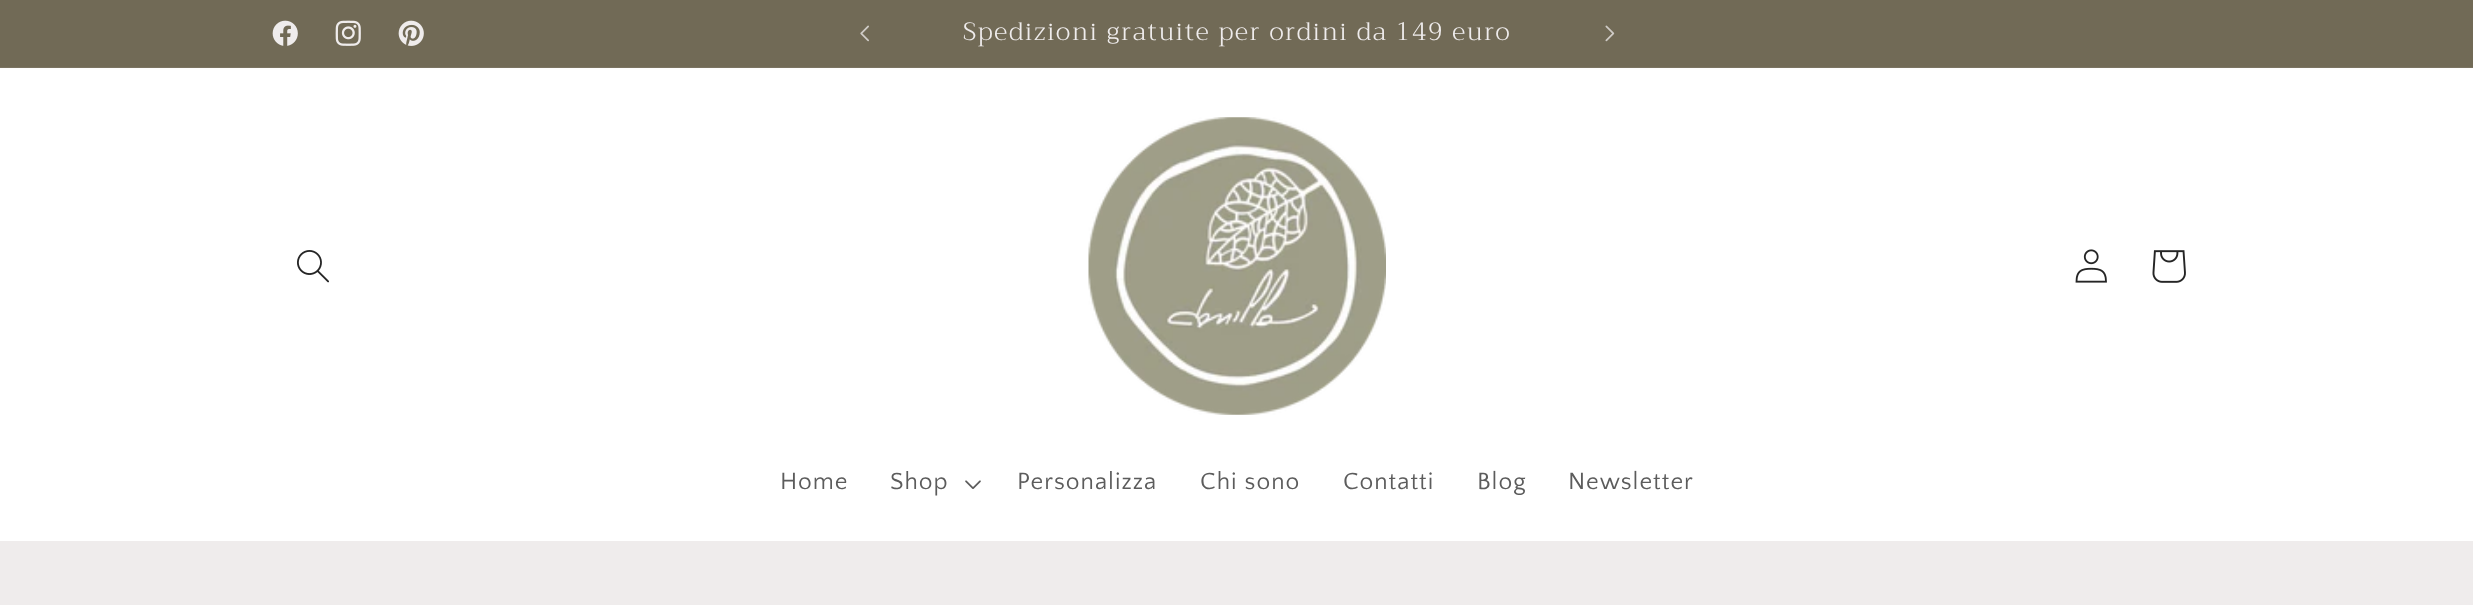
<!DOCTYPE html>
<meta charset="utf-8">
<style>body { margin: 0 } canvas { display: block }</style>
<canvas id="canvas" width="2473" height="605"></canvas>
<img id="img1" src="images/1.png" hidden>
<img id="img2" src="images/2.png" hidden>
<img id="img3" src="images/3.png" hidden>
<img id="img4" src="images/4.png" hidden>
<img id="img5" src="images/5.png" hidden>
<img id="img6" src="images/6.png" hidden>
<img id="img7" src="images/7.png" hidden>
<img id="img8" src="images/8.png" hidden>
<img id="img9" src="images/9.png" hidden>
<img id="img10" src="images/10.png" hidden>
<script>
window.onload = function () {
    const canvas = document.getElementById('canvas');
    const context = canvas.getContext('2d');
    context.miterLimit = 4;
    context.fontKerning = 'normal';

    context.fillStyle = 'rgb(239, 236, 236)';
    context.fillRect(0, 0, 2473, 605);
    context.fillStyle = 'rgb(113, 106, 86)';
    context.fillRect(0, 0, 2473, 67);
    context.fillStyle = 'rgb(123, 116, 98)';
    context.fillRect(0, 67, 2473, 1);
    context.drawImage(document.getElementById('img1'), 272, 20, 26, 26);
    context.drawImage(document.getElementById('img2'), 335, 20, 26, 26);
    context.drawImage(document.getElementById('img3'), 398, 20, 26, 26);
    context.drawImage(document.getElementById('img4'), 860, 25, 9, 17);
    context.drawImage(document.getElementById('img5'), 1605, 25, 10, 17);
    context.fillStyle = 'rgb(255, 255, 255)';
    context.fillRect(0, 69, 2473, 472);
    context.fillStyle = 'rgb(254, 253, 253)';
    context.fillRect(0, 68, 2473, 1);
    context.drawImage(document.getElementById('img6'), 297, 250, 32, 33);
    context.drawImage(document.getElementById('img7'), 1088, 117, 298, 298);
    context.drawImage(document.getElementById('img8'), 2075, 249, 32, 34);
    context.drawImage(document.getElementById('img9'), 2152, 250, 34, 33);
    context.drawImage(document.getElementById('img10'), 965, 480, 16, 9);
    context.letterSpacing = '1.75px';
    context.font = '300 25px Trirong';
    context.fillStyle = 'rgb(239, 236, 236)';
    context.fillText('Spedizioni gratuite per ordini da 149 euro', 963, 40);
    context.letterSpacing = '1px';
    context.font = '24.5px Quattrocento Sans';
    context.fillStyle = 'rgb(92, 92, 92)';
    context.fillText('Home', 780, 489);
    context.fillText('Shop', 890, 489);
    context.fillText('Personalizza', 1017, 489);
    context.fillText('Chi sono', 1200, 489);
    context.fillText('Contatti', 1343, 489);
    context.fillText('Blog', 1477, 489);
    context.fillText('Newsletter', 1568, 489);
};
</script>
